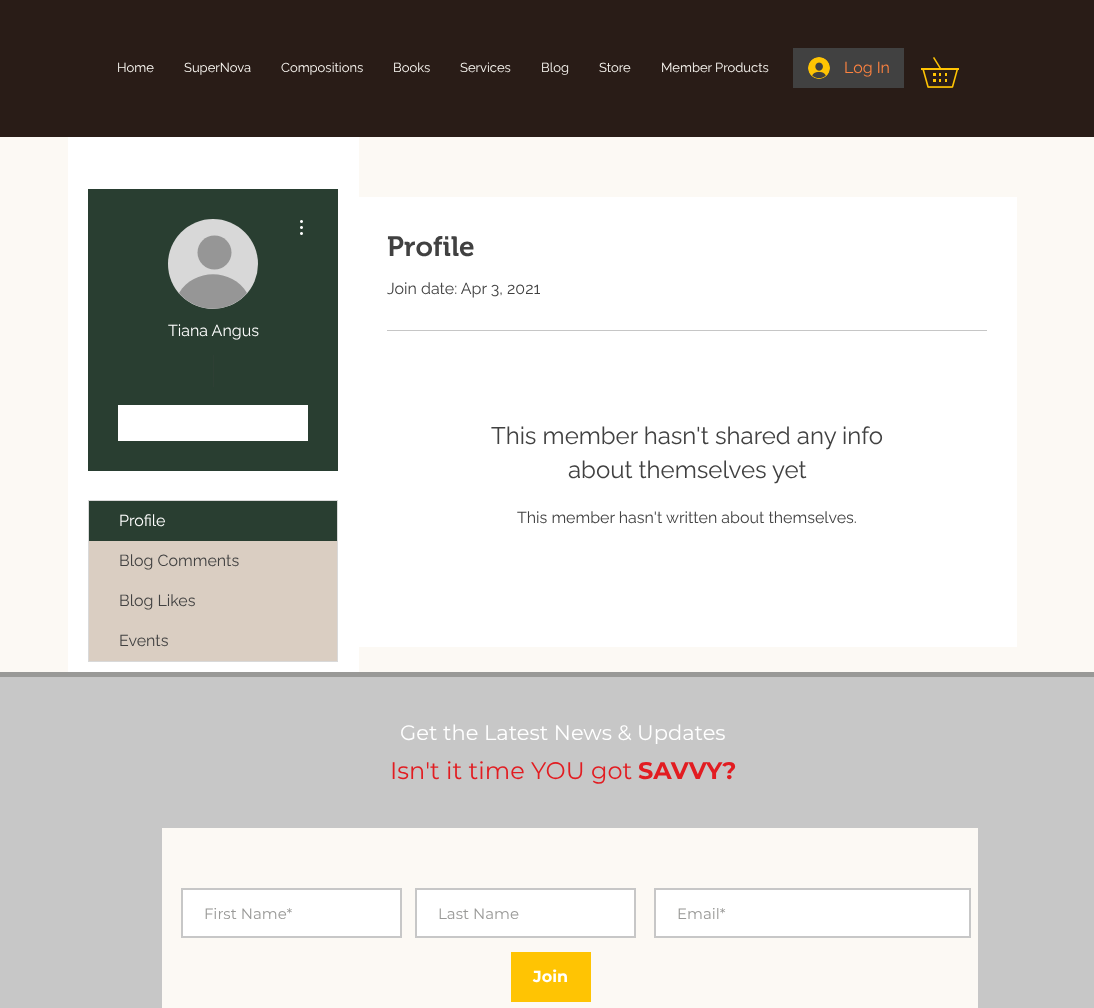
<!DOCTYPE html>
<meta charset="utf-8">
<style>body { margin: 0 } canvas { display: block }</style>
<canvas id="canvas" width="1094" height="1008"></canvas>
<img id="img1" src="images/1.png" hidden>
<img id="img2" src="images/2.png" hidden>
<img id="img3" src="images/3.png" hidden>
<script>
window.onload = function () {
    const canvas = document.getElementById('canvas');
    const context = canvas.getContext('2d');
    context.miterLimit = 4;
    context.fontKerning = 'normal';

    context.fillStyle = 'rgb(252, 249, 244)';
    context.fillRect(0, 0, 1094, 1008);
    context.fillStyle = 'rgb(41, 28, 23)';
    context.fillRect(0, 0, 1094, 137);
    context.fillStyle = 'rgb(65, 65, 65)';
    context.fillRect(793, 48, 111, 40);
    context.drawImage(document.getElementById('img1'), 808, 57, 22, 22);
    context.drawImage(document.getElementById('img2'), 921, 57, 38, 31);
    context.fillStyle = 'rgb(255, 255, 255)';
    context.fillRect(68, 137, 291, 535);
    context.fillStyle = 'rgb(41, 62, 49)';
    context.fillRect(88, 189, 250, 282);
    context.fillStyle = 'rgb(216, 216, 216)';
    context.beginPath();
    context.arc(213, 264, 45, 0, 2 * Math.PI);
    context.fill();
    context.fillStyle = 'rgb(150, 150, 150)';
    context.beginPath();
    context.arc(214.5, 252.5, 17, 0, 2 * Math.PI);
    context.fill();
    context.beginPath();
    context.moveTo(247, 293);
    context.bezierCurveTo(229, 314, 197, 314, 179, 293);
    context.bezierCurveTo(194, 268, 232, 268, 247, 293);
    context.closePath();
    context.fill();
    context.drawImage(document.getElementById('img3'), 300, 220, 3, 15);
    context.fillStyle = 'rgb(46, 63, 52)';
    context.fillRect(213, 355, 1, 32);
    context.fillStyle = 'rgb(255, 255, 255)';
    context.fillRect(118, 405, 190, 36);
    context.strokeStyle = 'rgb(217, 217, 217)';
    context.strokeRect(88.5, 500.5, 249, 161);
    context.fillStyle = 'rgb(41, 62, 49)';
    context.fillRect(89, 501, 248, 40);
    context.fillStyle = 'rgb(218, 206, 194)';
    context.fillRect(89, 541, 248, 120);
    context.fillStyle = 'rgb(255, 255, 255)';
    context.fillRect(359, 197, 658, 450);
    context.fillStyle = 'rgb(198, 198, 198)';
    context.fillRect(387, 330, 600, 1);
    context.fillStyle = 'rgb(199, 199, 199)';
    context.fillRect(0, 677, 1094, 331);
    context.fillStyle = 'rgb(153, 153, 151)';
    context.fillRect(0, 672, 1094, 5);
    context.fillStyle = 'rgb(252, 249, 244)';
    context.fillRect(162, 828, 816, 180);
    context.fillStyle = 'rgb(255, 255, 255)';
    context.beginPath();
    context.rect(182, 889, 219, 48);
    context.fill();
    context.strokeStyle = 'rgb(199, 199, 199)';
    context.lineWidth = 2;
    context.stroke();
    context.beginPath();
    context.rect(416, 889, 219, 48);
    context.fill();
    context.stroke();
    context.beginPath();
    context.rect(655, 889, 315, 48);
    context.fill();
    context.stroke();
    context.fillStyle = 'rgb(255, 196, 3)';
    context.fillRect(511, 952, 80, 50);
    context.font = '13px Raleway';
    context.fillStyle = 'rgb(252, 249, 244)';
    context.fillText('Home', 117, 72);
    context.fillText('SuperNova', 184, 72);
    context.fillText('Compositions', 281, 72);
    context.fillText('Books', 393, 72);
    context.fillText('Services', 460, 72);
    context.fillText('Blog', 541, 72);
    context.fillText('Store', 599, 72);
    context.fillText('Member Products', 661, 72);
    context.font = '16px Raleway';
    context.fillStyle = 'rgb(254, 131, 64)';
    context.fillText('Log In', 844, 73);
    context.fillStyle = 'rgb(255, 255, 255)';
    context.fillText('Tiana Angus', 168, 336);
    context.fillText('Profile', 119, 526);
    context.fillStyle = 'rgb(65, 65, 65)';
    context.fillText('Blog Comments', 119, 566);
    context.fillText('Blog Likes', 119, 606);
    context.fillText('Events', 119, 646);
    context.font = '600 28px "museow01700"';
    context.fillText('Profile', 387, 256);
    context.font = '16px Raleway';
    context.fillText('Join date: Apr 3, 2021', 387, 294);
    context.font = '24px Raleway';
    context.fillText('This member hasn\'t shared any info', 491, 444);
    context.fillText('about themselves yet', 568, 478);
    context.font = '16px Raleway';
    context.fillText('This member hasn\'t written about themselves.', 517, 523);
    context.font = '21px Montserrat';
    context.fillStyle = 'rgb(255, 255, 255)';
    context.fillText('Get the Latest News & Updates', 400, 740);
    context.font = '24px Montserrat';
    context.fillStyle = 'rgb(226, 28, 33)';
    context.fillText('Isn\'t it time YOU got', 390, 779);
    context.font = 'bold 24px Montserrat';
    context.fillText('SAVVY?', 638, 779);
    context.font = '15px Montserrat';
    context.fillStyle = 'rgb(153, 153, 151)';
    context.fillText('First Name*', 204, 919);
    context.fillText('Last Name', 438, 919);
    context.fillText('Email*', 677, 919);
    context.font = 'bold 16px Montserrat';
    context.fillStyle = 'rgb(255, 255, 255)';
    context.fillText('Join', 533, 982);
};
</script>
